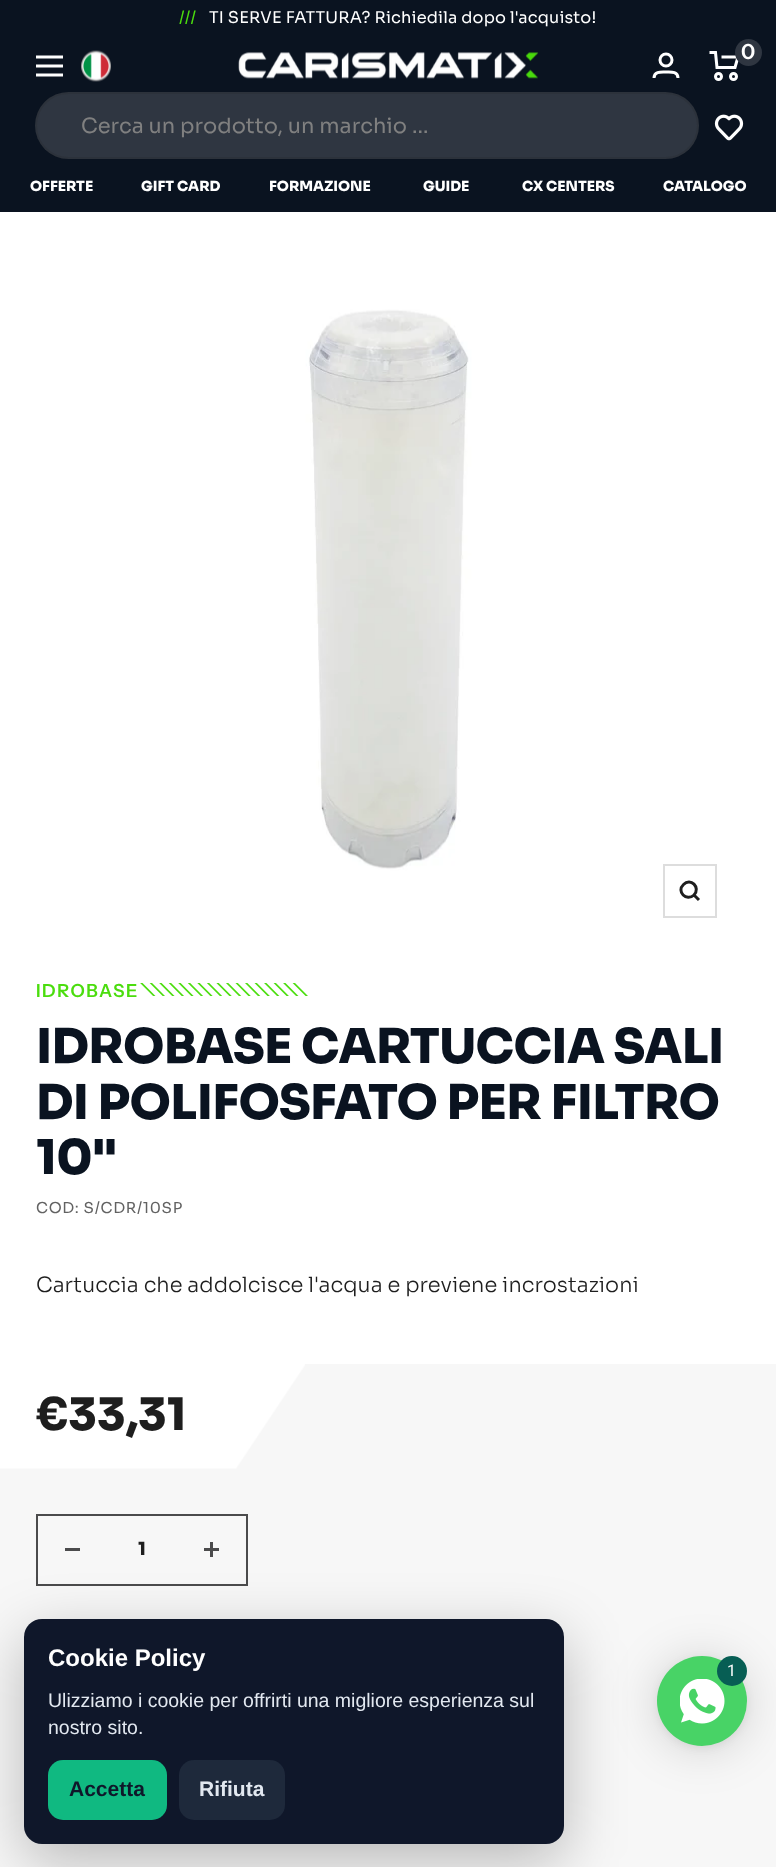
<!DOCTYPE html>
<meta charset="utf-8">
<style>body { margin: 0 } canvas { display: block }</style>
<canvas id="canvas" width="776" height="1867"></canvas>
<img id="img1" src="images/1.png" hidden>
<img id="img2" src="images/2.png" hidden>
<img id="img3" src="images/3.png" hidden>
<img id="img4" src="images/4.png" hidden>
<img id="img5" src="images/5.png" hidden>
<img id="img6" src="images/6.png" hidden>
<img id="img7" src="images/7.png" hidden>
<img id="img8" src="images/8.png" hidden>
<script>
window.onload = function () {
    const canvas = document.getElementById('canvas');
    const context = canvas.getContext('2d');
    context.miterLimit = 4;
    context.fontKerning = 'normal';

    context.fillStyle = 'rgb(255, 255, 255)';
    context.fillRect(0, 0, 776, 1867);
    context.fillStyle = 'rgb(10, 19, 32)';
    context.fillRect(0, 0, 776, 212);
    context.beginPath();
    context.moveTo(36, 57);
    context.lineTo(63, 57);
    context.moveTo(36, 75);
    context.lineTo(63, 75);
    context.closePath();
    context.moveTo(36, 66);
    context.lineTo(63, 66);
    context.closePath();
    context.strokeStyle = 'rgb(255, 255, 255)';
    context.lineWidth = 3;
    context.stroke();
    context.drawImage(document.getElementById('img1'), 238, 52, 301, 27);
    context.drawImage(document.getElementById('img2'), 81, 50, 30, 32);
    context.beginPath();
    context.arc(666, 60, 6, 0, 2 * Math.PI);
    context.stroke();
    context.beginPath();
    context.moveTo(654, 78);
    context.bezierCurveTo(654, 71, 661.5, 72, 666, 72);
    context.bezierCurveTo(670.5, 72, 678, 71, 678, 78);
    context.stroke();
    context.beginPath();
    context.moveTo(709.5, 52.5);
    context.lineTo(715.5, 52.5);
    context.lineTo(717, 67.5);
    context.lineTo(735, 67.5);
    context.lineTo(738, 57);
    context.lineTo(721.5, 57);
    context.stroke();
    context.beginPath();
    context.arc(718.5, 76.5, 3, 0, 2 * Math.PI);
    context.stroke();
    context.beginPath();
    context.arc(733.5, 76.5, 3, 0, 2 * Math.PI);
    context.stroke();
    context.fillStyle = 'rgb(47, 54, 65)';
    context.beginPath();
    context.arc(748.5, 52.5, 13.5, 0, 2 * Math.PI);
    context.fill();
    context.drawImage(document.getElementById('img3'), 714, 114, 30, 27);
    context.beginPath();
    context.roundRect(35, 92, 664, 67, 33.5);
    context.fill();
    context.beginPath();
    context.roundRect(36, 93, 662, 65, 32.5);
    context.strokeStyle = 'rgba(34, 34, 34, 0.2)';
    context.lineWidth = 2;
    context.stroke();
    context.drawImage(document.getElementById('img4'), 36, 237, 705, 705);
    context.strokeStyle = 'rgb(221, 221, 221)';
    context.strokeRect(664, 865, 52, 52);
    context.beginPath();
    context.moveTo(694, 895);
    context.bezierCurveTo(701, 887.5, 690.5, 877, 683.5, 884.5);
    context.bezierCurveTo(676, 891.5, 686.5, 902, 694, 895);
    context.closePath();
    context.moveTo(694, 895);
    context.lineTo(699, 900);
    context.strokeStyle = 'rgb(30, 30, 30)';
    context.lineWidth = 3;
    context.stroke();
    context.drawImage(document.getElementById('img5'), 140, 983, 168, 13);
    context.fillStyle = 'rgb(247, 247, 247)';
    context.fillRect(0, 1364, 776, 503);
    context.drawImage(document.getElementById('img6'), 0, 1364, 305, 105);
    context.strokeStyle = 'rgb(75, 75, 76)';
    context.lineWidth = 2;
    context.strokeRect(37, 1515, 210, 70);
    context.fillStyle = 'rgb(75, 75, 76)';
    context.fillRect(65, 1548, 15, 3);
    context.drawImage(document.getElementById('img7'), 204, 1542, 15, 15);
    context.fillStyle = 'rgba(0, 0, 0, 0.25)';
    context.filter = 'blur(30px)';
    context.beginPath();
    context.roundRect(24, 1637, 540, 225, 18);
    context.fill();
    context.filter = 'none';
    context.fillStyle = 'rgb(15, 23, 42)';
    context.beginPath();
    context.roundRect(24, 1619, 540, 225, 18);
    context.fill();
    context.fillStyle = 'rgb(16, 185, 129)';
    context.beginPath();
    context.roundRect(48, 1760, 119, 60, 15);
    context.fill();
    context.fillStyle = 'rgb(30, 41, 59)';
    context.beginPath();
    context.roundRect(179, 1760, 106, 60, 15);
    context.fill();
    context.fillStyle = 'rgba(0, 0, 0, 0.16)';
    context.filter = 'blur(24px)';
    context.beginPath();
    context.roundRect(657, 1659, 90, 90, 45);
    context.fill();
    context.filter = 'none';
    context.fillStyle = 'rgba(0, 0, 0, 0.06)';
    context.filter = 'blur(4.5px)';
    context.beginPath();
    context.roundRect(657, 1658, 90, 90, 45);
    context.fill();
    context.filter = 'none';
    context.fillStyle = 'rgb(72, 211, 102)';
    context.beginPath();
    context.arc(702, 1701, 45, 0, 2 * Math.PI);
    context.fill();
    context.drawImage(document.getElementById('img8'), 680, 1679, 45, 45);
    context.fillStyle = 'rgb(7, 94, 84)';
    context.beginPath();
    context.arc(732, 1671, 15, 0, 2 * Math.PI);
    context.fill();
    context.letterSpacing = '0.15px';
    context.font = '16.2px Sora';
    context.fillStyle = 'rgb(75, 221, 14)';
    context.fillText('///', 179, 23);
    context.fillStyle = 'rgb(255, 255, 255)';
    context.fillText('TI SERVE FATTURA? Richiedila dopo l\'acquisto!', 209, 23);
    context.letterSpacing = '0px';
    context.font = '600 21px Instrument Sans';
    context.fillText('0', 741, 59);
    context.font = '21px Sora';
    context.fillStyle = 'rgb(128, 128, 128)';
    context.fillText('Cerca un prodotto, un marchio …', 81, 133);
    context.font = '800 14px Sora';
    context.fillStyle = 'rgb(255, 255, 255)';
    context.fillText('OFFERTE', 30, 191);
    context.fillText('GIFT CARD', 141, 191);
    context.fillText('FORMAZIONE', 269, 191);
    context.fillText('GUIDE', 423, 191);
    context.fillText('CX CENTERS', 522, 191);
    context.fillText('CATALOGO', 663, 191);
    context.letterSpacing = '1.5px';
    context.font = '600 18px Instrument Sans';
    context.fillStyle = 'rgb(75, 221, 14)';
    context.fillText('IDROBASE', 36, 997);
    context.letterSpacing = '-0.6px';
    context.font = '800 48px Sora';
    context.fillStyle = 'rgb(10, 19, 32)';
    context.fillText('IDROBASE CARTUCCIA SALI', 36, 1063);
    context.fillText('DI POLIFOSFATO PER FILTRO', 36, 1119);
    context.fillText('10"', 36, 1174);
    context.letterSpacing = '0.7px';
    context.font = '15px Sora';
    context.fillStyle = 'rgb(98, 98, 98)';
    context.fillText('COD: S/CDR/10SP', 36, 1213);
    context.letterSpacing = '0px';
    context.font = '300 21px Sora';
    context.fillStyle = 'rgb(30, 30, 30)';
    context.fillText('Cartuccia che addolcisce l\'acqua e previene incrostazioni', 36, 1292);
    context.font = '800 45px Sora';
    context.fillText('€33,31', 36, 1430);
    context.font = '800 18px Sora';
    context.fillText('1', 138, 1555);
    context.font = 'bold 24px Liberation Sans';
    context.fillStyle = 'rgb(255, 255, 255)';
    context.fillText('Cookie Policy', 48, 1666);
    context.font = '19.5px Liberation Sans';
    context.fillStyle = 'rgb(226, 232, 240)';
    context.fillText('Ulizziamo i cookie per offrirti una migliore esperienza sul', 48, 1707);
    context.fillText('nostro sito.', 48, 1734);
    context.font = 'bold 21px Liberation Sans';
    context.fillStyle = 'rgb(15, 23, 42)';
    context.fillText('Accetta', 69, 1796);
    context.fillStyle = 'rgb(226, 232, 240)';
    context.fillText('Rifiuta', 199, 1796);
    context.font = '16px Roboto';
    context.fillStyle = 'rgb(255, 255, 255)';
    context.fillText('1', 727, 1676);
};
</script>
